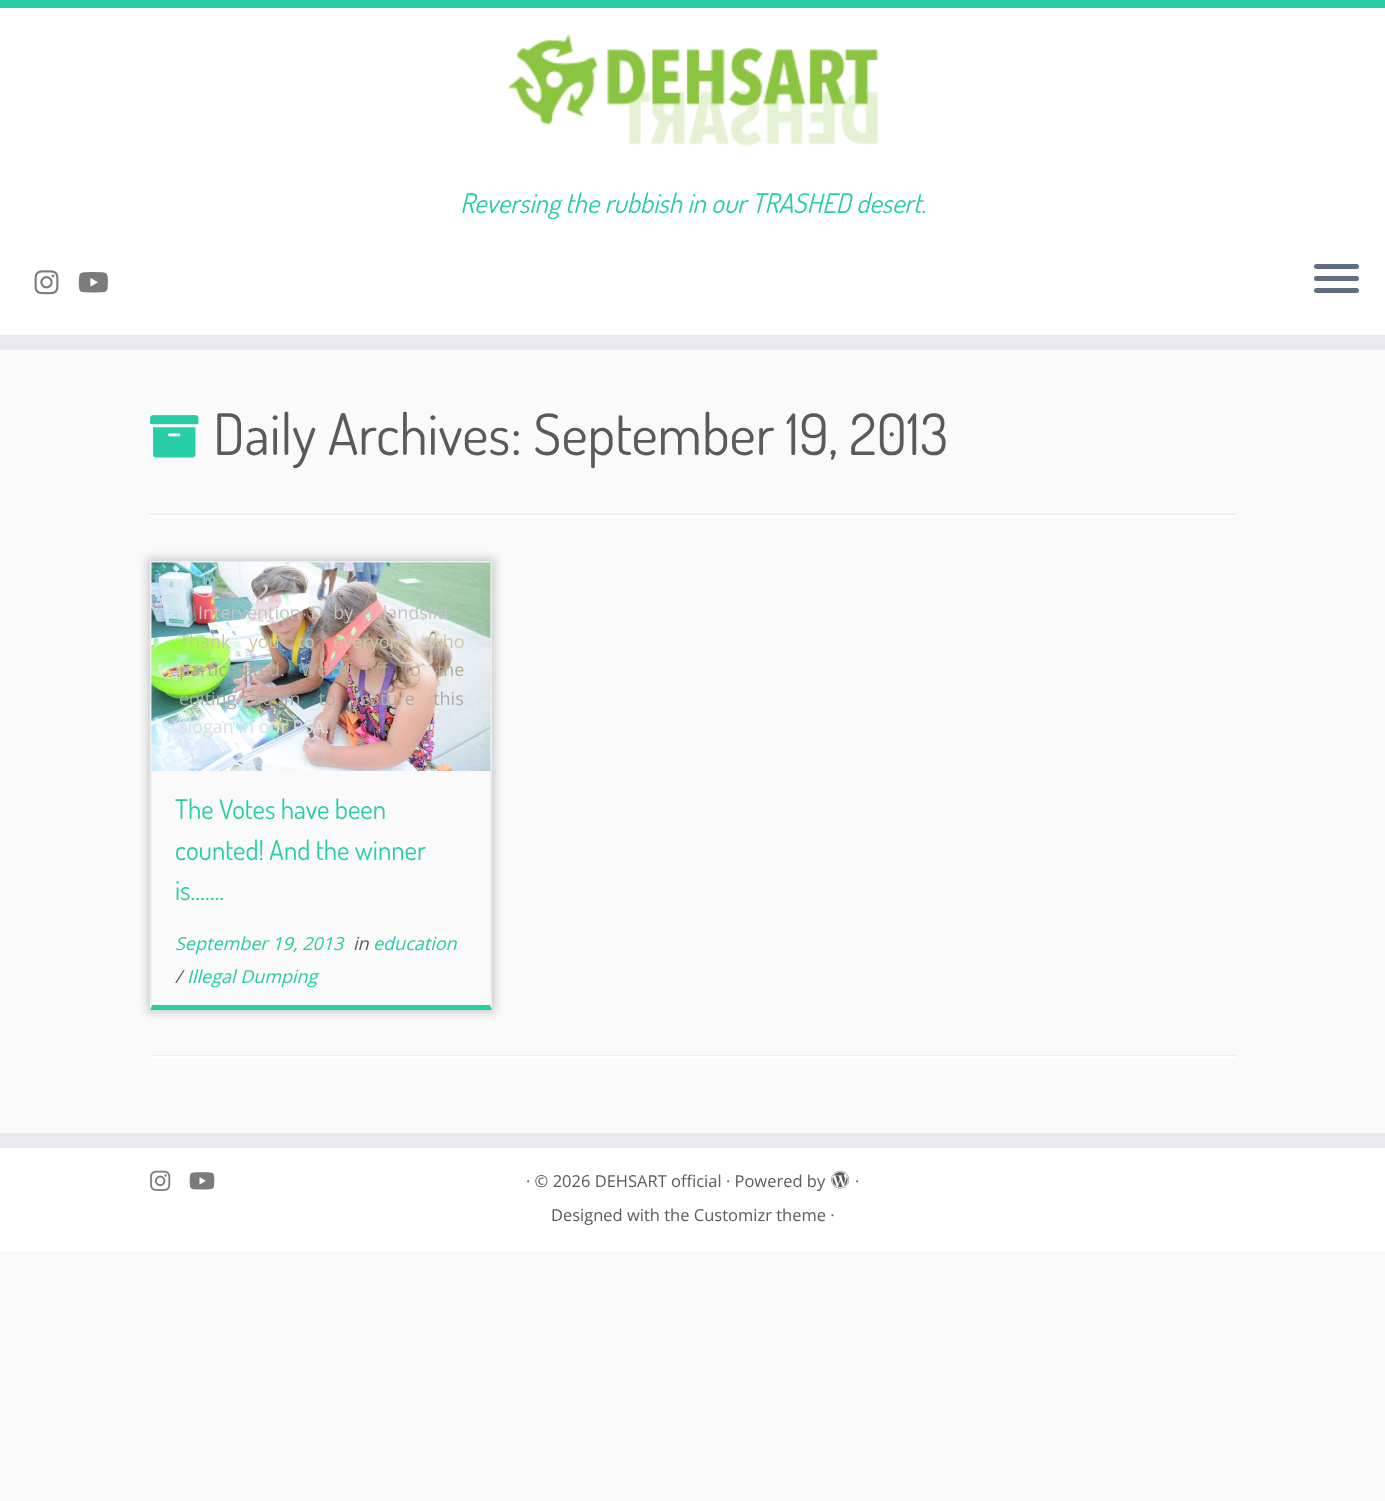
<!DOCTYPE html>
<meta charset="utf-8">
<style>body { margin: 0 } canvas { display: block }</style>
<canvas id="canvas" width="1385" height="1501"></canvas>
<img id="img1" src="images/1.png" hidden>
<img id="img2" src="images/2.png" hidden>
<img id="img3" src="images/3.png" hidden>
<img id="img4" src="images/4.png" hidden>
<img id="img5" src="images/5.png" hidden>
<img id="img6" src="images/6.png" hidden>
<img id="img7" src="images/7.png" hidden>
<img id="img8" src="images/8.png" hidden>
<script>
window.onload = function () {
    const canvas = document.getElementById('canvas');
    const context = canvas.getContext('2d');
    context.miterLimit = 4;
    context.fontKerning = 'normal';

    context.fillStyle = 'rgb(250, 250, 250)';
    context.fillRect(0, 0, 1385, 1501);
    context.fillStyle = 'rgb(255, 255, 255)';
    context.fillRect(0, 8, 1385, 327);
    context.fillStyle = 'rgb(39, 205, 165)';
    context.fillRect(0, 0, 1385, 8);
    context.fillStyle = 'rgb(233, 234, 238)';
    context.fillRect(0, 335, 1385, 15);
    context.drawImage(document.getElementById('img1'), 508, 34, 370, 112);
    context.drawImage(document.getElementById('img2'), 34, 270, 25, 25);
    context.drawImage(document.getElementById('img3'), 78, 272, 30, 21);
    context.fillStyle = 'rgb(95, 111, 129)';
    context.beginPath();
    context.roundRect(1314, 264, 45, 5, 2.5);
    context.fill();
    context.beginPath();
    context.roundRect(1314, 276, 45, 5, 2.5);
    context.fill();
    context.beginPath();
    context.roundRect(1314, 288, 45, 5, 2.5);
    context.fill();
    context.drawImage(document.getElementById('img4'), 150, 415, 49, 43);
    context.fillStyle = 'rgb(238, 238, 238)';
    context.fillRect(150, 513, 1086, 2);
    context.fillStyle = 'rgb(255, 255, 255)';
    context.fillRect(150, 515, 1086, 2);
    context.save();
    context.beginPath();
    context.moveTo(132, 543);
    context.lineTo(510, 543);
    context.lineTo(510, 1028);
    context.lineTo(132, 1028);
    context.closePath();
    context.moveTo(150, 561);
    context.lineTo(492, 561);
    context.lineTo(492, 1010);
    context.lineTo(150, 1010);
    context.closePath();
    context.clip('evenodd');
    context.fillStyle = 'rgb(204, 204, 204)';
    context.filter = 'blur(4.5px)';
    context.beginPath();
    context.rect(147, 558, 348, 455);
    context.fill();
    context.filter = 'none';
    context.restore();
    context.fillStyle = 'rgb(238, 238, 238)';
    context.fillRect(150, 561, 342, 2);
    context.beginPath();
    context.moveTo(492, 561);
    context.lineTo(492, 1010);
    context.lineTo(490, 1005);
    context.lineTo(490, 562);
    context.closePath();
    context.fill();
    context.fillStyle = 'rgb(39, 205, 165)';
    context.beginPath();
    context.moveTo(492, 1010);
    context.lineTo(150, 1010);
    context.lineTo(152, 1005);
    context.lineTo(490, 1005);
    context.closePath();
    context.fill();
    context.fillStyle = 'rgb(238, 238, 238)';
    context.beginPath();
    context.moveTo(150, 1010);
    context.lineTo(150, 561);
    context.lineTo(152, 562);
    context.lineTo(152, 1005);
    context.closePath();
    context.fill();
    context.drawImage(document.getElementById('img5'), 151, 562, 340, 209);
    context.fillRect(150, 1055, 1086, 1);
    context.fillStyle = 'rgb(255, 255, 255)';
    context.fillRect(150, 1056, 1086, 2);
    context.fillStyle = 'rgb(233, 234, 238)';
    context.fillRect(0, 1133, 1385, 15);
    context.fillStyle = 'rgb(255, 255, 255)';
    context.fillRect(0, 1148, 1385, 103);
    context.drawImage(document.getElementById('img6'), 150, 1170, 21, 21);
    context.drawImage(document.getElementById('img7'), 189, 1172, 26, 18);
    context.drawImage(document.getElementById('img8'), 831, 1170, 18, 19);
    context.font = 'italic 27px Dosis';
    context.fillStyle = 'rgb(39, 205, 165)';
    context.fillText('Reversing the rubbish in our TRASHED desert.', 460, 213);
    context.font = '57px Dosis';
    context.fillStyle = 'rgb(90, 90, 90)';
    context.fillText('Daily Archives: September 19, 2013', 213, 455);
    context.wordSpacing = '5px';
    context.font = '18px Open Sans';
    context.fillStyle = 'rgb(198, 196, 193)';
    context.fillText('Intervention D by a landslid', 198, 619);
    context.wordSpacing = '13.5px';
    context.fillStyle = 'rgb(203, 201, 161)';
    context.fillText('Thank you to everyone who', 179, 648);
    context.wordSpacing = '11.5px';
    context.fillStyle = 'rgb(177, 175, 153)';
    context.fillText('participated. We’re off to the', 179, 676);
    context.wordSpacing = '13.5px';
    context.fillStyle = 'rgb(173, 173, 167)';
    context.fillText('editing room to feature this', 179, 705);
    context.wordSpacing = '0px';
    context.fillStyle = 'rgb(214, 226, 227)';
    context.fillText('slogan in our PSA.', 179, 733);
    context.font = '27px Dosis';
    context.fillStyle = 'rgb(39, 205, 165)';
    context.fillText('The Votes have been', 175, 819);
    context.fillText('counted! And the winner', 175, 860);
    context.fillText('is…….', 175, 900);
    context.font = 'italic 18px Open Sans';
    context.fillText('September 19, 2013', 175, 950);
    context.fillStyle = 'rgb(90, 90, 90)';
    context.fillText('in', 353, 950);
    context.fillStyle = 'rgb(39, 205, 165)';
    context.fillText('education', 373, 950);
    context.fillStyle = 'rgb(90, 90, 90)';
    context.fillText('/', 175, 983);
    context.fillStyle = 'rgb(39, 205, 165)';
    context.fillText('Illegal Dumping', 187, 983);
    context.font = '16.5px Open Sans';
    context.fillStyle = 'rgb(90, 90, 90)';
    context.fillText('· © 2026 DEHSART official · Powered by', 526, 1187);
    context.fillText('·', 855, 1187);
    context.fillText('Designed with the Customizr theme ·', 551, 1221);
};
</script>
